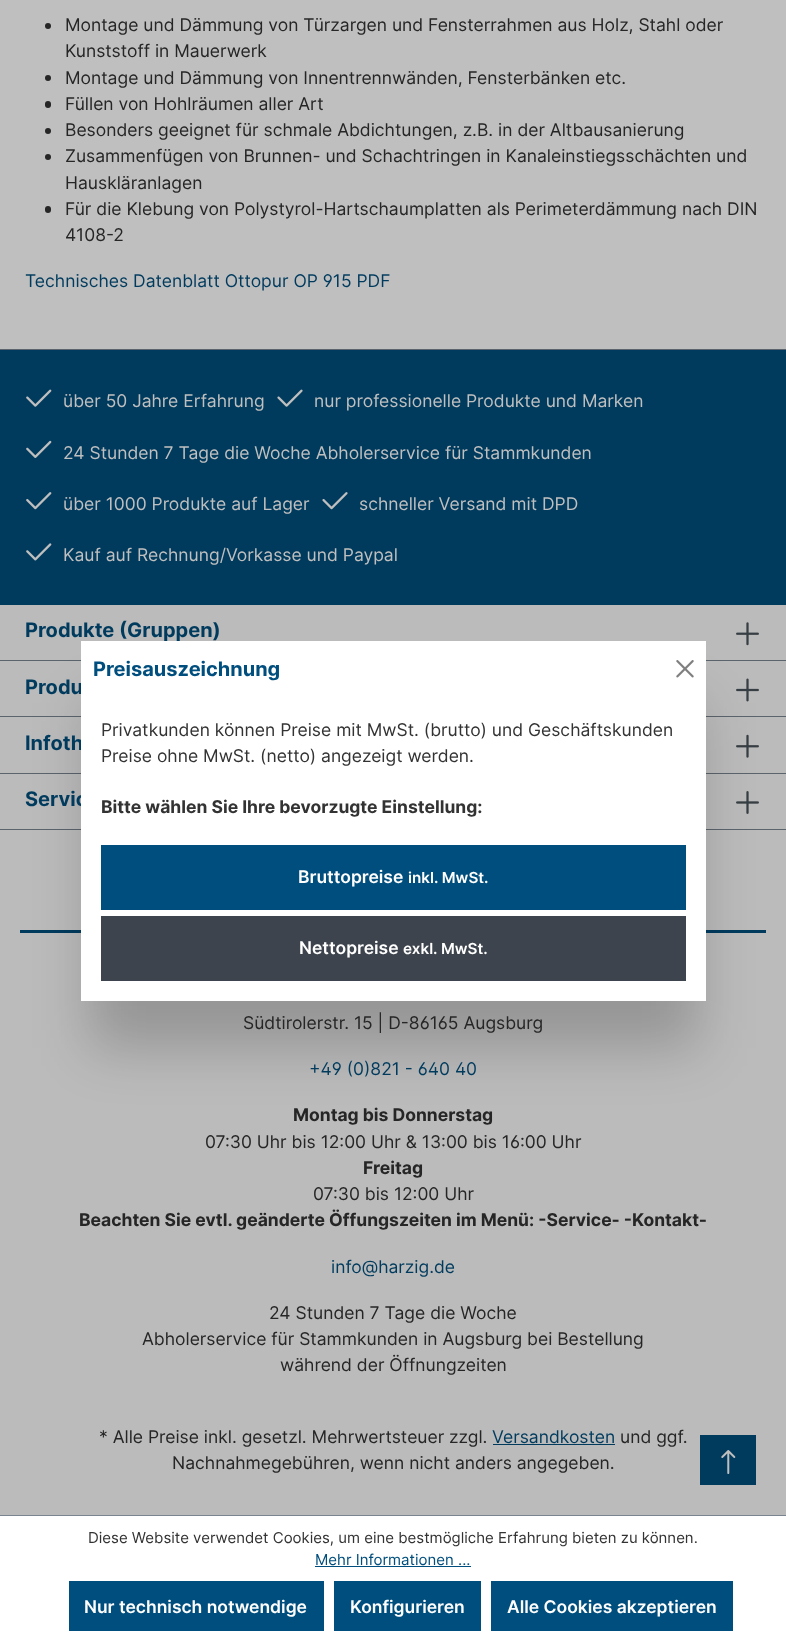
<!DOCTYPE html>
<meta charset="utf-8">
<style>body { margin: 0 } canvas { display: block }</style>
<canvas id="canvas" width="786" height="1641"></canvas>
<img id="img1" src="images/1.png" hidden>
<img id="img2" src="images/2.png" hidden>
<img id="img3" src="images/3.png" hidden>
<img id="img4" src="images/4.png" hidden>
<img id="img5" src="images/5.png" hidden>
<img id="img6" src="images/6.png" hidden>
<img id="img7" src="images/7.png" hidden>
<img id="img8" src="images/8.png" hidden>
<img id="img9" src="images/9.png" hidden>
<img id="img10" src="images/10.png" hidden>
<img id="img11" src="images/12.png" hidden>
<img id="img12" src="images/11.png" hidden>
<script>
window.onload = function () {
    const canvas = document.getElementById('canvas');
    const context = canvas.getContext('2d');
    context.miterLimit = 4;
    context.fontKerning = 'normal';

    context.fillStyle = 'rgb(191, 191, 191)';
    context.fillRect(0, 0, 786, 1641);
    context.fillStyle = 'rgb(38, 38, 38)';
    context.beginPath();
    context.arc(48, 26, 3, 0, 2 * Math.PI);
    context.fill();
    context.beginPath();
    context.arc(48, 78, 3, 0, 2 * Math.PI);
    context.fill();
    context.beginPath();
    context.roundRect(45, 101, 6, 7, 3);
    context.fill();
    context.beginPath();
    context.arc(48, 131, 3, 0, 2 * Math.PI);
    context.fill();
    context.beginPath();
    context.arc(48, 157, 3, 0, 2 * Math.PI);
    context.fill();
    context.beginPath();
    context.roundRect(45, 206, 6, 7, 3);
    context.fill();
    context.fillStyle = 'rgb(187, 187, 187)';
    context.fillRect(0, 605, 786, 910);
    context.fillStyle = 'rgb(91, 99, 108)';
    context.fillRect(0, 349, 786, 1);
    context.fillStyle = 'rgb(0, 59, 94)';
    context.fillRect(0, 350, 786, 255);
    context.drawImage(document.getElementById('img1'), 26, 389, 26, 18);
    context.drawImage(document.getElementById('img2'), 277, 389, 26, 18);
    context.drawImage(document.getElementById('img3'), 26, 440, 26, 18);
    context.drawImage(document.getElementById('img4'), 26, 492, 26, 18);
    context.drawImage(document.getElementById('img5'), 322, 492, 26, 18);
    context.drawImage(document.getElementById('img6'), 26, 543, 26, 18);
    context.fillStyle = 'rgb(91, 99, 108)';
    context.fillRect(0, 660, 786, 1);
    context.drawImage(document.getElementById('img7'), 736, 622, 23, 24);
    context.fillRect(0, 716, 786, 1);
    context.drawImage(document.getElementById('img8'), 736, 678, 23, 24);
    context.fillRect(0, 773, 786, 1);
    context.drawImage(document.getElementById('img9'), 736, 734, 23, 24);
    context.fillRect(0, 829, 786, 1);
    context.drawImage(document.getElementById('img10'), 736, 791, 23, 23);
    context.fillStyle = 'rgb(0, 59, 94)';
    context.fillRect(20, 930, 746, 3);
    context.fillRect(493, 1444, 122, 1);
    context.fillStyle = 'rgba(0, 0, 0, 0.2)';
    context.filter = 'blur(27px)';
    context.beginPath();
    context.rect(89, 703, 610, 345);
    context.fill();
    context.filter = 'none';
    context.fillStyle = 'rgb(0, 59, 94)';
    context.fillRect(700, 1435, 56, 50);
    context.drawImage(document.getElementById('img11'), 721, 1450, 15, 24);
    context.fillStyle = 'rgb(255, 255, 255)';
    context.fillRect(0, 1516, 786, 125);
    context.fillStyle = 'rgb(121, 132, 144)';
    context.fillRect(0, 1515, 786, 1);
    context.fillStyle = 'rgb(0, 78, 125)';
    context.fillRect(315, 1566, 156, 1);
    context.fillRect(69, 1581, 255, 50);
    context.fillRect(334, 1581, 147, 50);
    context.fillRect(491, 1581, 242, 50);
    context.font = '17.5px Inter';
    context.fillStyle = 'rgb(38, 38, 38)';
    context.fillText('Montage und Dämmung von Türzargen und Fensterrahmen aus Holz, Stahl oder', 65, 31);
    context.fillText('Kunststoff in Mauerwerk', 65, 57);
    context.fillText('Montage und Dämmung von Innentrennwänden, Fensterbänken etc.', 65, 84);
    context.fillText('Füllen von Hohlräumen aller Art', 65, 110);
    context.fillText('Besonders geeignet für schmale Abdichtungen, z.B. in der Altbausanierung', 65, 136);
    context.fillText('Zusammenfügen von Brunnen- und Schachtringen in Kanaleinstiegsschächten und', 65, 162);
    context.fillText('Hauskläranlagen', 65, 189);
    context.fillText('Für die Klebung von Polystyrol-Hartschaumplatten als Perimeterdämmung nach DIN', 65, 215);
    context.fillText('4108-2', 65, 241);
    context.font = '17.5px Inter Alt';
    context.fillStyle = 'rgb(0, 59, 94)';
    context.fillText('Technisches Datenblatt Ottopur OP 915 PDF', 25, 287);
    context.font = '17.5px Inter';
    context.fillStyle = 'rgb(191, 191, 191)';
    context.fillText('über 50 Jahre Erfahrung', 63, 407);
    context.fillText('nur professionelle Produkte und Marken', 314, 407);
    context.fillText('24 Stunden 7 Tage die Woche Abholerservice für Stammkunden', 63, 459);
    context.fillText('über 1000 Produkte auf Lager', 63, 510);
    context.fillText('schneller Versand mit DPD', 359, 510);
    context.fillText('Kauf auf Rechnung/Vorkasse und Paypal', 63, 561);
    context.font = 'bold 20px Inter';
    context.fillStyle = 'rgb(0, 59, 94)';
    context.fillText('Produkte (Gruppen)', 25, 637);
    context.fillText('Produ', 25, 694);
    context.fillText('Infoth', 25, 750);
    context.fillText('Servic', 25, 806);
    context.font = '17.5px Inter Alt';
    context.fillStyle = 'rgb(38, 38, 38)';
    context.fillText('Südtirolerstr. 15 | D-86165 Augsburg', 243, 1029);
    context.fillStyle = 'rgb(0, 59, 94)';
    context.fillText('+49 (0)821 - 640 40', 309, 1075);
    context.font = 'bold 17.5px Inter';
    context.fillStyle = 'rgb(38, 38, 38)';
    context.fillText('Montag bis Donnerstag', 293, 1121);
    context.font = '17.5px Inter Alt';
    context.fillText('07:30 Uhr bis 12:00 Uhr & 13:00 bis 16:00 Uhr', 205, 1148);
    context.font = 'bold 17.5px Inter';
    context.fillText('Freitag', 363, 1174);
    context.font = '17.5px Inter';
    context.fillText('07:30 bis 12:00 Uhr', 313, 1200);
    context.font = 'bold 17.5px Inter';
    context.fillText('Beachten Sie evtl. geänderte Öffungszeiten im Menü: -Service- -Kontakt-', 79, 1226);
    context.font = '17.5px Inter';
    context.fillStyle = 'rgb(0, 59, 94)';
    context.fillText('info@harzig.de', 331, 1273);
    context.fillStyle = 'rgb(38, 38, 38)';
    context.fillText('24 Stunden 7 Tage die Woche', 269, 1319);
    context.fillText('Abholerservice für Stammkunden in Augsburg bei Bestellung', 142, 1345);
    context.fillText('während der Öffnungzeiten', 280, 1371);
    context.fillText('* Alle Preise inkl. gesetzl. Mehrwertsteuer zzgl.', 99, 1443);
    context.fillStyle = 'rgb(0, 59, 94)';
    context.fillText('Versandkosten', 492, 1443);
    context.fillStyle = 'rgb(38, 38, 38)';
    context.fillText('und ggf.', 620, 1443);
    context.fillText('Nachnahmegebühren, wenn nicht anders angegeben.', 172, 1469);
    context.fillStyle = 'rgb(255, 255, 255)';
    context.fillRect(81, 641, 625, 360);
    context.font = 'bold 20px Inter';
    context.fillStyle = 'rgb(0, 78, 125)';
    context.fillText('Preisauszeichnung', 93, 676);
    context.drawImage(document.getElementById('img12'), 676, 660, 18, 18);
    context.font = '17.5px Inter';
    context.fillStyle = 'rgb(51, 51, 51)';
    context.fillText('Privatkunden können Preise mit MwSt. (brutto) und Geschäftskunden', 101, 736);
    context.fillText('Preise ohne MwSt. (netto) angezeigt werden.', 101, 762);
    context.font = 'bold 17.5px Inter';
    context.fillText('Bitte wählen Sie Ihre bevorzugte Einstellung:', 101, 813);
    context.fillStyle = 'rgb(0, 78, 125)';
    context.fillRect(101, 845, 585, 65);
    context.font = '600 17.5px Inter';
    context.fillStyle = 'rgb(255, 255, 255)';
    context.fillText('Bruttopreise', 298, 883);
    context.font = '600 15.25px Inter';
    context.fillText('inkl. MwSt.', 408, 883);
    context.fillStyle = 'rgb(61, 68, 77)';
    context.fillRect(101, 916, 585, 65);
    context.font = '600 17.5px Inter';
    context.fillStyle = 'rgb(255, 255, 255)';
    context.fillText('Nettopreise', 299, 954);
    context.font = '600 15.25px Inter';
    context.fillText('exkl. MwSt.', 403, 954);
    context.font = '15px Inter';
    context.fillStyle = 'rgb(51, 51, 51)';
    context.fillText('Diese Website verwendet Cookies, um eine bestmögliche Erfahrung bieten zu können.', 88, 1543);
    context.fillStyle = 'rgb(0, 78, 125)';
    context.fillText('Mehr Informationen ...', 315, 1565);
    context.font = '600 17.5px Inter';
    context.fillStyle = 'rgb(255, 255, 255)';
    context.fillText('Nur technisch notwendige', 84, 1613);
    context.fillText('Konfigurieren', 350, 1613);
    context.fillText('Alle Cookies akzeptieren', 507, 1613);
};
</script>
